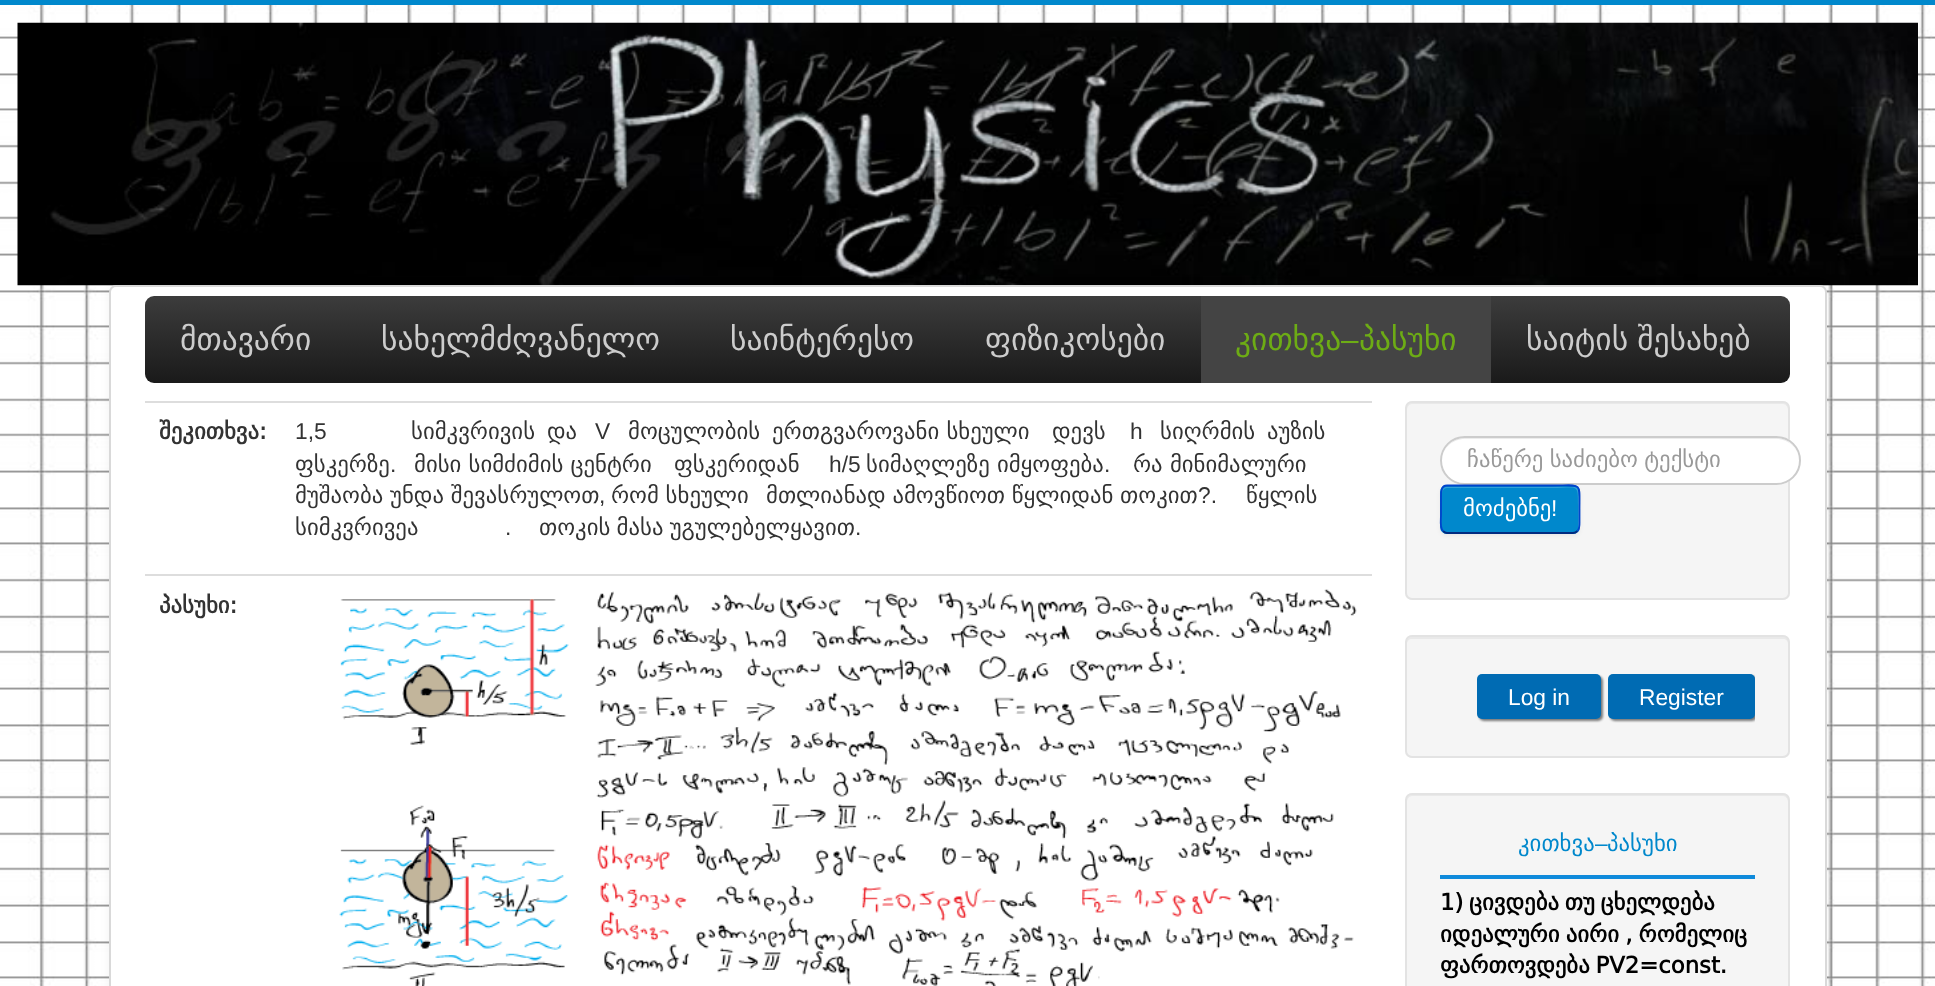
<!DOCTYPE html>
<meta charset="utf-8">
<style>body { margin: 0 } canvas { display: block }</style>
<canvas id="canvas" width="1935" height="986"></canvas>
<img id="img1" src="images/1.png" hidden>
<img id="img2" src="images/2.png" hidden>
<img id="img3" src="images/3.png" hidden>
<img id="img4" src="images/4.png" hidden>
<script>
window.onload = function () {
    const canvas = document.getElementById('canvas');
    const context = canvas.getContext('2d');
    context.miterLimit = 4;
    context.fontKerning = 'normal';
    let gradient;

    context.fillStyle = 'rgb(255, 255, 255)';
    context.fillRect(0, 0, 1935, 986);
    context.drawImage(document.getElementById('img1'), 0, 5, 1935, 981);
    context.fillStyle = 'rgb(0, 136, 204)';
    context.fillRect(0, 0, 1935, 5);
    context.drawImage(document.getElementById('img2'), 17, 22, 1901, 264);
    context.fillStyle = 'rgba(0, 0, 0, 0.05)';
    context.filter = 'blur(5px)';
    context.beginPath();
    context.roundRect(109, 285, 1718, 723, 7);
    context.fill();
    context.filter = 'none';
    context.drawImage(document.getElementById('img3'), 609, 33, 718, 247);
    context.fillStyle = 'rgb(255, 255, 255)';
    context.beginPath();
    context.roundRect(109, 285, 1718, 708, 7);
    context.fill();
    context.beginPath();
    context.roundRect(110, 286, 1716, 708, 6);
    context.strokeStyle = 'rgba(0, 0, 0, 0.15)';
    context.lineWidth = 2;
    context.stroke();
    gradient = context.createLinearGradient(968, 296, 968, 383);
    gradient.addColorStop(0, 'rgb(60, 60, 60)');
    gradient.addColorStop(1, 'rgb(26, 26, 26)');
    context.fillStyle = gradient;
    context.beginPath();
    context.roundRect(145, 296, 1645, 87, 9);
    context.fill();
    context.fillStyle = 'rgb(68, 68, 68)';
    context.fillRect(1201, 296, 290, 87);
    context.fillStyle = 'rgb(221, 221, 221)';
    context.fillRect(145, 401, 1227, 2);
    context.fillRect(145, 574, 1227, 2);
    context.drawImage(document.getElementById('img4'), 339, 589, 1018, 397);
    context.fillStyle = 'rgb(245, 245, 245)';
    context.beginPath();
    context.roundRect(1405, 401, 385, 199, 7);
    context.fill();
    context.fillStyle = 'rgb(233, 233, 233)';
    context.beginPath();
    context.moveTo(1412, 404);
    context.lineTo(1783, 404);
    context.bezierCurveTo(1786, 404, 1788, 407, 1788, 410);
    context.lineTo(1788, 595);
    context.lineTo(1787, 598);
    context.bezierCurveTo(1788, 597, 1789, 595, 1789, 594);
    context.lineTo(1789, 408);
    context.bezierCurveTo(1789, 405, 1787, 403, 1784, 403);
    context.lineTo(1412, 403);
    context.bezierCurveTo(1409, 403, 1407, 405, 1407, 408);
    context.lineTo(1407, 410);
    context.bezierCurveTo(1407, 407, 1409, 404, 1412, 404);
    context.closePath();
    context.fill();
    context.beginPath();
    context.roundRect(1406, 402, 383, 197, 6);
    context.strokeStyle = 'rgb(227, 227, 227)';
    context.stroke();
    context.fillStyle = 'rgb(255, 255, 255)';
    context.beginPath();
    context.roundRect(1440, 436, 361, 49, 24.5);
    context.fill();
    context.fillStyle = 'rgb(236, 236, 236)';
    context.beginPath();
    context.moveTo(1465, 439);
    context.lineTo(1776, 439);
    context.bezierCurveTo(1789, 439, 1799, 449, 1799, 461);
    context.bezierCurveTo(1799, 449, 1789, 438, 1776, 438);
    context.lineTo(1464, 438);
    context.bezierCurveTo(1452, 438, 1442, 449, 1442, 461);
    context.bezierCurveTo(1442, 449, 1452, 439, 1465, 439);
    context.closePath();
    context.fill();
    context.beginPath();
    context.roundRect(1441, 437, 359, 47, 23.5);
    context.strokeStyle = 'rgb(204, 204, 204)';
    context.stroke();
    context.fillStyle = 'rgba(0, 0, 0, 0.05)';
    context.filter = 'blur(2px)';
    context.beginPath();
    context.roundRect(1440, 487, 140, 49, 7);
    context.fill();
    context.filter = 'none';
    context.fillStyle = 'rgb(0, 136, 204)';
    context.beginPath();
    context.roundRect(1440, 485, 140, 49, 7);
    context.fill();
    context.fillStyle = 'rgb(51, 160, 214)';
    context.beginPath();
    context.moveTo(1447, 488);
    context.lineTo(1552, 488);
    context.bezierCurveTo(1578, 488, 1578, 483, 1578, 505);
    context.lineTo(1578, 531);
    context.bezierCurveTo(1578, 530, 1579, 528, 1579, 527);
    context.lineTo(1579, 492);
    context.bezierCurveTo(1579, 489, 1577, 487, 1574, 487);
    context.lineTo(1447, 487);
    context.bezierCurveTo(1444, 487, 1442, 489, 1442, 492);
    context.lineTo(1442, 494);
    context.bezierCurveTo(1442, 491, 1444, 488, 1447, 488);
    context.closePath();
    context.fill();
    context.beginPath();
    context.moveTo(1577.5, 531);
    context.bezierCurveTo(1576.5, 532, 1575, 533, 1573, 533);
    context.lineTo(1447, 533);
    context.bezierCurveTo(1445.5, 533, 1444, 532, 1443, 531);
    context.strokeStyle = 'rgb(0, 42, 128)';
    context.lineWidth = 1.8;
    context.stroke();
    context.beginPath();
    context.moveTo(1443, 531);
    context.bezierCurveTo(1439.5, 527.5, 1441, 519, 1441, 515);
    context.lineTo(1441, 497.5);
    context.bezierCurveTo(1441, 493, 1440.5, 485.5, 1447, 485.5);
    context.lineTo(1552, 485.5);
    context.bezierCurveTo(1582.5, 485.5, 1579.5, 481, 1579.5, 509);
    context.lineTo(1579.5, 521);
    context.bezierCurveTo(1579.5, 524, 1580, 528.5, 1577.5, 531);
    context.strokeStyle = 'rgb(0, 68, 204)';
    context.stroke();
    context.fillStyle = 'rgb(245, 245, 245)';
    context.beginPath();
    context.roundRect(1405, 635, 385, 123, 7);
    context.fill();
    context.fillStyle = 'rgb(233, 233, 233)';
    context.beginPath();
    context.moveTo(1412, 639);
    context.lineTo(1783, 639);
    context.bezierCurveTo(1786, 639, 1788, 641, 1788, 644);
    context.lineTo(1788, 752);
    context.lineTo(1788, 755);
    context.bezierCurveTo(1788, 754, 1789, 752, 1789, 751);
    context.lineTo(1789, 642);
    context.bezierCurveTo(1789, 639, 1787, 637, 1784, 637);
    context.lineTo(1412, 637);
    context.bezierCurveTo(1409, 637, 1407, 639, 1407, 642);
    context.lineTo(1407, 644);
    context.bezierCurveTo(1407, 641, 1409, 639, 1412, 639);
    context.closePath();
    context.fill();
    context.beginPath();
    context.roundRect(1406, 636, 383, 121, 6);
    context.strokeStyle = 'rgb(227, 227, 227)';
    context.lineWidth = 2;
    context.stroke();
    context.fillStyle = 'rgba(0, 0, 0, 0.5)';
    context.filter = 'blur(1px)';
    context.beginPath();
    context.roundRect(1479, 676, 124, 45, 5);
    context.fill();
    context.filter = 'none';
    context.fillStyle = 'rgb(0, 107, 179)';
    context.beginPath();
    context.roundRect(1477, 674, 124, 45, 5);
    context.fill();
    context.save();
    context.beginPath();
    context.rect(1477, 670, 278, 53);
    context.clip();
    context.fillStyle = 'rgba(0, 0, 0, 0.5)';
    context.filter = 'blur(1px)';
    context.beginPath();
    context.roundRect(1610, 676, 147, 45, 5);
    context.fill();
    context.filter = 'none';
    context.restore();
    context.beginPath();
    context.roundRect(1608, 674, 147, 45, 5);
    context.fill();
    context.fillStyle = 'rgb(245, 245, 245)';
    context.beginPath();
    context.roundRect(1405, 793, 385, 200, 7);
    context.fill();
    context.fillStyle = 'rgb(233, 233, 233)';
    context.beginPath();
    context.moveTo(1412, 796);
    context.lineTo(1783, 796);
    context.bezierCurveTo(1786, 796, 1788, 799, 1788, 802);
    context.lineTo(1788, 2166);
    context.lineTo(1788, 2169);
    context.bezierCurveTo(1788, 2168, 1789, 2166, 1789, 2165);
    context.lineTo(1789, 800);
    context.bezierCurveTo(1789, 797, 1787, 795, 1784, 795);
    context.lineTo(1412, 795);
    context.bezierCurveTo(1409, 795, 1407, 797, 1407, 800);
    context.lineTo(1407, 802);
    context.bezierCurveTo(1407, 799, 1409, 796, 1412, 796);
    context.closePath();
    context.fill();
    context.beginPath();
    context.roundRect(1406, 794, 383, 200, 6);
    context.stroke();
    context.fillStyle = 'rgb(15, 138, 219)';
    context.fillRect(1440, 875, 315, 4);
    context.font = '31.5px DejaVu Sans';
    context.fillStyle = 'rgb(204, 204, 204)';
    context.fillText('მთავარი', 180, 350);
    context.fillText('სახელმძღვანელო', 381, 350);
    context.fillText('საინტერესო', 730, 350);
    context.fillText('ფიზიკოსები', 985, 350);
    context.fillStyle = 'rgb(109, 172, 21)';
    context.fillText('კითხვა', 1235, 350);
    context.font = '31.5px Liberation Sans';
    context.fillText('–', 1341, 350);
    context.font = '31.5px DejaVu Sans';
    context.fillText('პასუხი', 1359, 350);
    context.wordSpacing = '-1px';
    context.fillStyle = 'rgb(204, 204, 204)';
    context.fillText('საიტის შესახებ', 1526, 350);
    context.wordSpacing = '0px';
    context.font = 'bold 22.75px DejaVu Sans';
    context.fillStyle = 'rgb(51, 51, 51)';
    context.fillText('შეკითხვა:', 159, 439);
    context.font = '22.75px Liberation Sans';
    context.fillText('1,5', 295, 439);
    context.font = '22.75px DejaVu Sans';
    context.fillText('სიმკვრივის', 411, 439);
    context.fillText('და', 547, 439);
    context.font = '22.75px Liberation Sans';
    context.fillText('V', 595, 439);
    context.font = '22.75px DejaVu Sans';
    context.fillText('მოცულობის', 628, 439);
    context.fillText('ერთგვაროვანი სხეული', 772, 439);
    context.fillText('დევს', 1052, 439);
    context.font = '22.75px Liberation Sans';
    context.fillText('h', 1130, 439);
    context.font = '22.75px DejaVu Sans';
    context.fillText('სიღრმის', 1160, 439);
    context.fillText('აუზის', 1267, 439);
    context.fillText('ფსკერზე', 295, 472);
    context.font = '22.75px Liberation Sans';
    context.fillText('.', 390, 472);
    context.font = '22.75px DejaVu Sans';
    context.fillText('მისი სიმძიმის ცენტრი', 414, 472);
    context.fillText('ფსკერიდან', 674, 472);
    context.font = '22.75px Liberation Sans';
    context.fillText('h/5', 829, 472);
    context.font = '22.75px DejaVu Sans';
    context.fillText('სიმაღლეზე იმყოფება', 866, 472);
    context.font = '22.75px Liberation Sans';
    context.fillText('.', 1104, 472);
    context.font = '22.75px DejaVu Sans';
    context.fillText('რა მინიმალური', 1133, 472);
    context.wordSpacing = '-0.5px';
    context.fillText('მუშაობა უნდა შევასრულოთ', 295, 503);
    context.wordSpacing = '0px';
    context.font = '22.75px Liberation Sans';
    context.fillText(',', 599, 503);
    context.wordSpacing = '-0.5px';
    context.font = '22.75px DejaVu Sans';
    context.fillText('რომ სხეული', 611, 503);
    context.fillText('მთლიანად ამოვწიოთ წყლიდან თოკით', 766, 503);
    context.wordSpacing = '0px';
    context.font = '22.75px Liberation Sans';
    context.fillText('?.', 1198, 503);
    context.font = '22.75px DejaVu Sans';
    context.fillText('წყლის', 1246, 503);
    context.fillText('სიმკვრივეა', 295, 535);
    context.font = '22.75px Liberation Sans';
    context.fillText('.', 505, 535);
    context.wordSpacing = '-1px';
    context.font = '22.75px DejaVu Sans';
    context.fillText('თოკის მასა უგულებელყავით', 539, 535);
    context.wordSpacing = '0px';
    context.font = '22.75px Liberation Sans';
    context.fillText('.', 855, 535);
    context.font = 'bold 22.75px DejaVu Sans';
    context.fillText('პასუხი:', 159, 613);
    context.wordSpacing = '-1px';
    context.font = '22.75px DejaVu Sans';
    context.fillStyle = 'rgb(153, 153, 153)';
    context.fillText('ჩაწერე საძიებო ტექსტი', 1467, 467);
    context.wordSpacing = '0px';
    context.fillStyle = 'rgb(255, 255, 255)';
    context.fillText('მოძებნე', 1463, 516);
    context.font = '22.75px Liberation Sans';
    context.fillText('!', 1551, 516);
    context.fillText('Log in', 1508, 705);
    context.fillText('Register', 1639, 705);
    context.font = '22.75px DejaVu Sans';
    context.fillStyle = 'rgb(0, 136, 204)';
    context.fillText('კითხვა', 1518, 851);
    context.font = '22.75px Liberation Sans';
    context.fillText('–', 1595, 851);
    context.font = '22.75px DejaVu Sans';
    context.fillText('პასუხი', 1607, 851);
    context.wordSpacing = '-1.5px';
    context.font = 'bold 22.75px DejaVu Sans';
    context.fillStyle = 'rgb(0, 0, 0)';
    context.fillText('1) ცივდება თუ ცხელდება', 1440, 910);
    context.wordSpacing = '-1px';
    context.fillText('იდეალური აირი , რომელიც', 1440, 942);
    context.wordSpacing = '-1.5px';
    context.fillText('ფართოვდება PV2=const.', 1440, 973);
};
</script>
